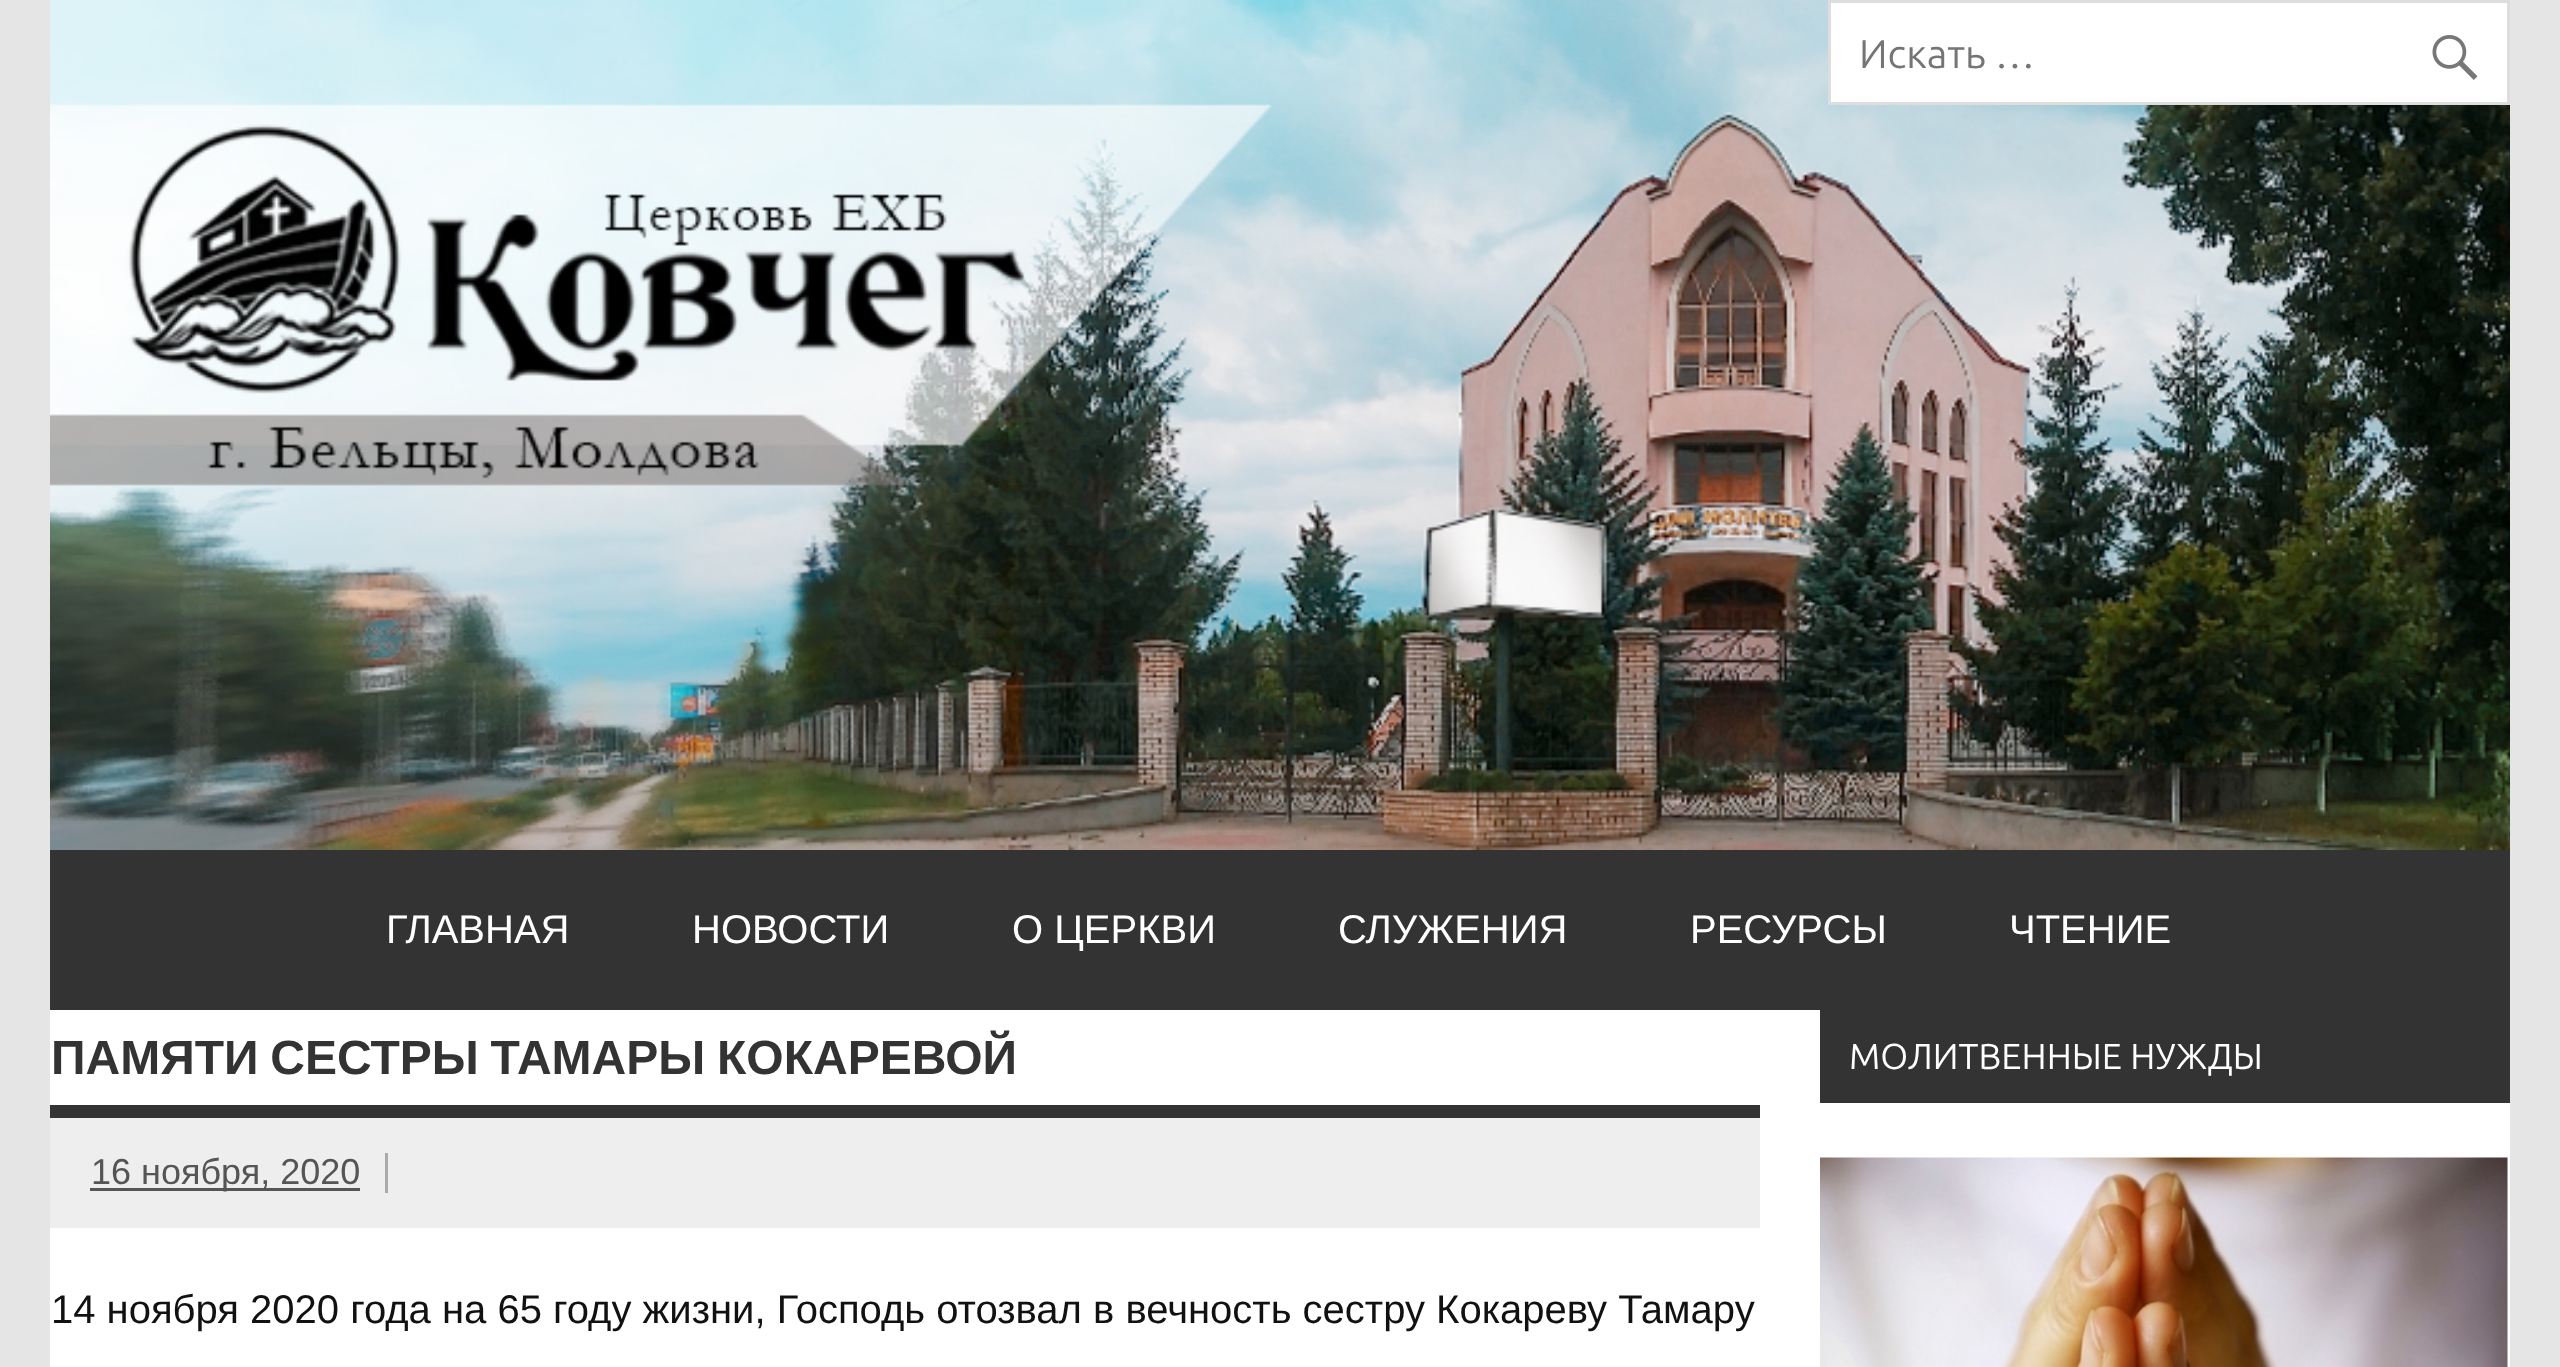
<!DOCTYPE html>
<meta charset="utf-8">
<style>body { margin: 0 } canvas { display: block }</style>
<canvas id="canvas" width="2560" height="1367"></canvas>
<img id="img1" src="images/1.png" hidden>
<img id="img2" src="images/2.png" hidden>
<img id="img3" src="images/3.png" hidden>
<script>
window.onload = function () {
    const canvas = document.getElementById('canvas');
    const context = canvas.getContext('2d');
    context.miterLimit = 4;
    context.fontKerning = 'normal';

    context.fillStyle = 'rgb(229, 229, 229)';
    context.fillRect(0, 0, 2560, 1367);
    context.fillStyle = 'rgb(255, 255, 255)';
    context.fillRect(50, 1010, 2460, 357);
    context.drawImage(document.getElementById('img1'), 50, 0, 2460, 850);
    context.beginPath();
    context.rect(1829.5, 1.5, 679, 102);
    context.fill();
    context.strokeStyle = 'rgb(221, 221, 221)';
    context.lineWidth = 3;
    context.stroke();
    context.drawImage(document.getElementById('img2'), 2432, 35, 46, 45);
    context.fillStyle = 'rgb(51, 51, 51)';
    context.fillRect(50, 850, 2460, 160);
    context.fillRect(50, 1105, 1710, 13);
    context.fillStyle = 'rgb(238, 238, 238)';
    context.fillRect(50, 1118, 1710, 110);
    context.fillStyle = 'rgb(170, 170, 170)';
    context.fillRect(385, 1153, 3, 40);
    context.fillStyle = 'rgb(85, 85, 85)';
    context.fillRect(90, 1188, 270, 3);
    context.fillStyle = 'rgb(51, 51, 51)';
    context.fillRect(1820, 1010, 690, 93);
    context.drawImage(document.getElementById('img3'), 1820, 1157, 688, 210);
    context.font = '40px Ubuntu';
    context.fillStyle = 'rgb(117, 117, 117)';
    context.fillText('Искать …', 1859, 68);
    context.font = '40px Liberation Sans';
    context.fillStyle = 'rgb(255, 255, 255)';
    context.fillText('ГЛАВНАЯ', 386, 943);
    context.fillText('НОВОСТИ', 692, 943);
    context.fillText('О ЦЕРКВИ', 1012, 943);
    context.fillText('СЛУЖЕНИЯ', 1338, 943);
    context.fillText('РЕСУРСЫ', 1690, 943);
    context.fillText('ЧТЕНИЕ', 2009, 943);
    context.wordSpacing = '-1.5px';
    context.font = 'bold 48px Liberation Sans';
    context.fillStyle = 'rgb(51, 51, 51)';
    context.fillText('ПАМЯТИ СЕСТРЫ ТАМАРЫ КОКАРЕВОЙ', 51, 1074);
    context.wordSpacing = '0px';
    context.font = '36px Liberation Sans';
    context.fillStyle = 'rgb(85, 85, 85)';
    context.fillText('16 ноября, 2020', 91, 1184);
    context.font = '40px Liberation Sans';
    context.fillStyle = 'rgb(17, 17, 17)';
    context.fillText('14 ноября 2020 года на 65 году жизни, Господь отозвал в вечность сестру Кокареву Тамару', 51, 1323);
    context.font = '36px Ubuntu';
    context.fillStyle = 'rgb(255, 255, 255)';
    context.fillText('МОЛИТВЕННЫЕ НУЖДЫ', 1849, 1069);
};
</script>
